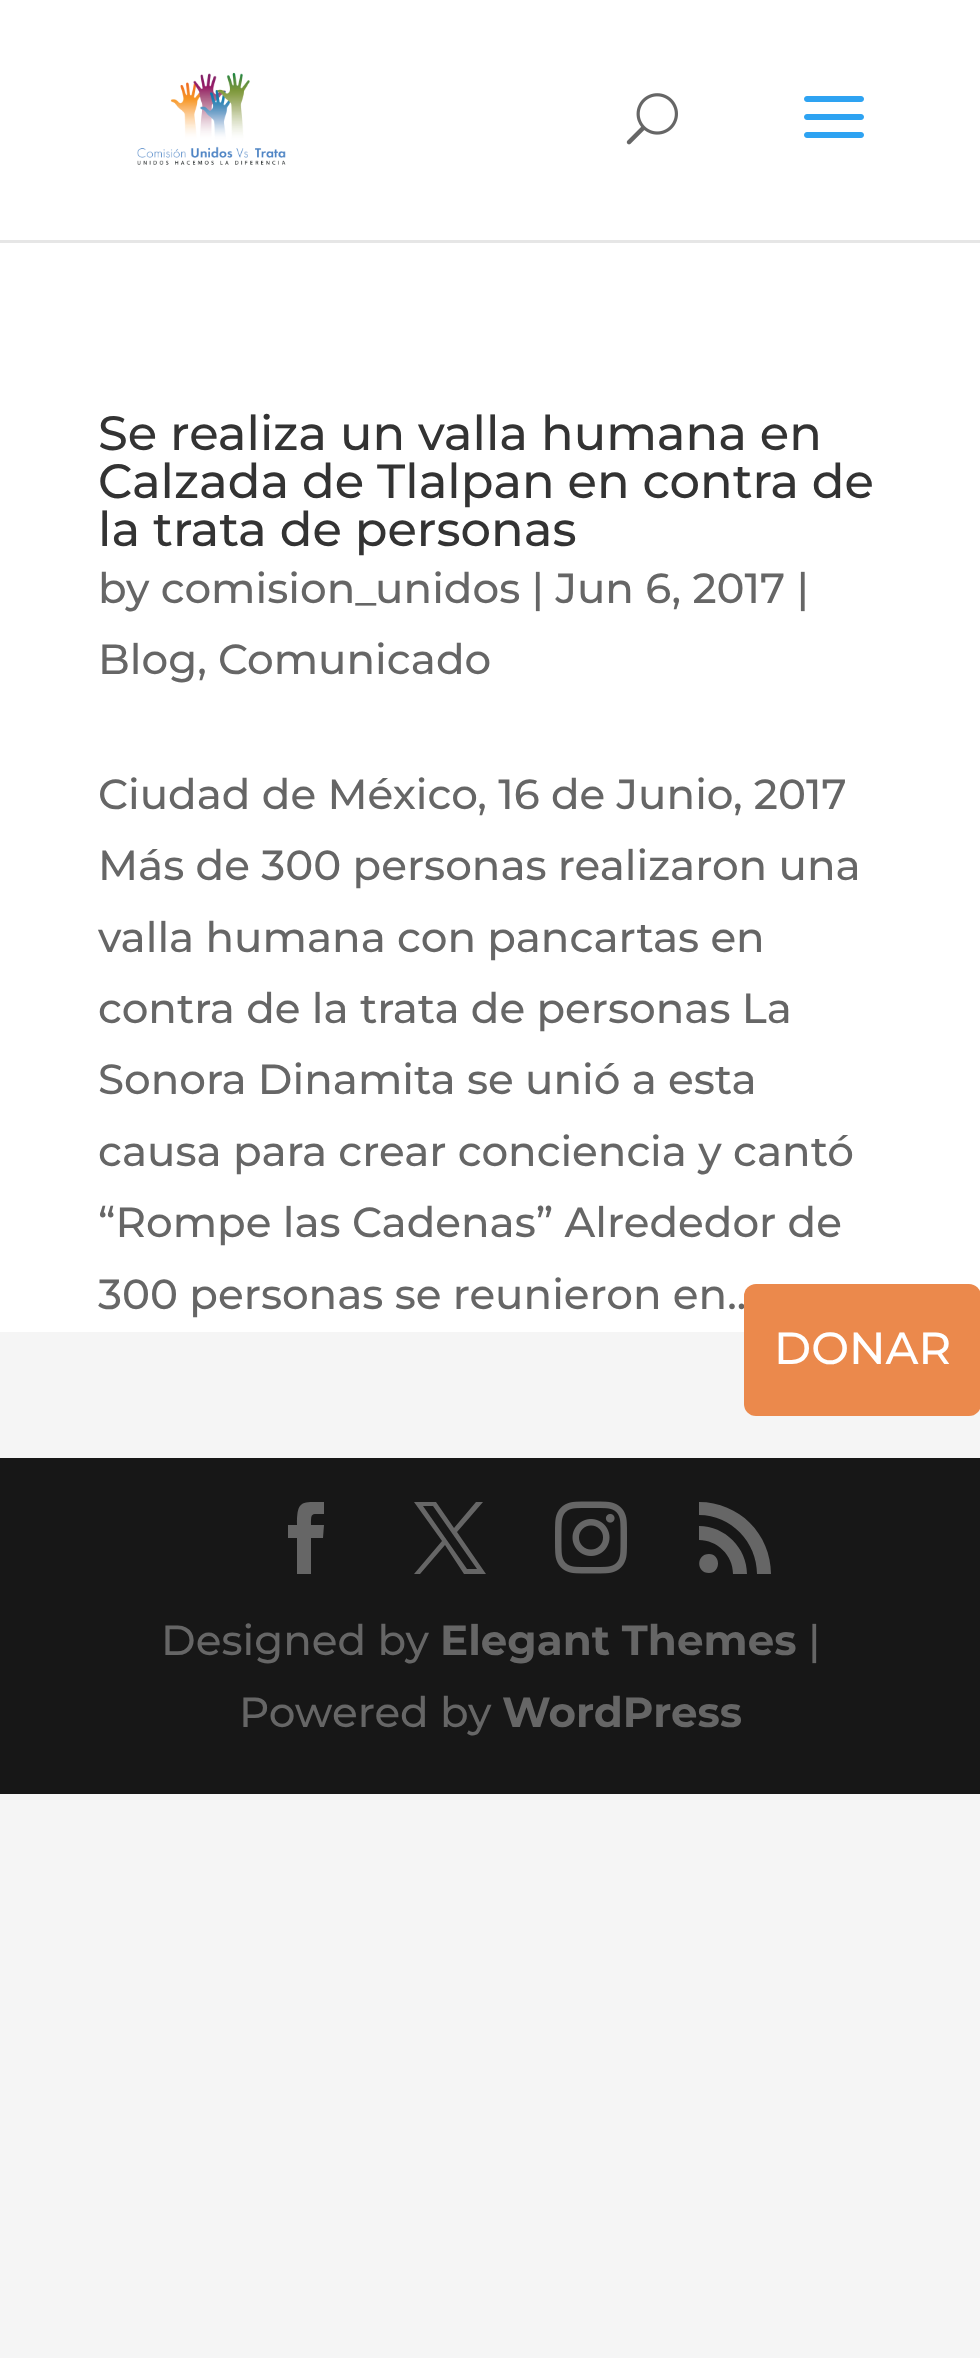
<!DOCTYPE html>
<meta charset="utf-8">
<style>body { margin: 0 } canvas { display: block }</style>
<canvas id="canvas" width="980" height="2358"></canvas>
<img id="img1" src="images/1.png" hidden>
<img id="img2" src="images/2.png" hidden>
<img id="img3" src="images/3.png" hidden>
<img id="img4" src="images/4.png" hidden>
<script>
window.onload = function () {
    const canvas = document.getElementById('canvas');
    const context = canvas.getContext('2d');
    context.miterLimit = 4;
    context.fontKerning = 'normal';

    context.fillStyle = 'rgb(245, 245, 245)';
    context.fillRect(0, 0, 980, 2358);
    context.fillStyle = 'rgb(230, 230, 230)';
    context.fillRect(0, 240, 980, 3);
    context.fillStyle = 'rgb(255, 255, 255)';
    context.fillRect(0, 0, 980, 240);
    context.drawImage(document.getElementById('img1'), 137, 72, 149, 93);
    context.drawImage(document.getElementById('img2'), 626, 93, 52, 52);
    context.drawImage(document.getElementById('img3'), 804, 96, 60, 42);
    context.fillRect(0, 243, 980, 1089);
    context.fillStyle = 'rgb(23, 23, 23)';
    context.fillRect(0, 1458, 980, 336);
    context.fillStyle = 'rgb(102, 102, 102)';
    context.beginPath();
    context.moveTo(297, 1574);
    context.lineTo(311, 1574);
    context.lineTo(311, 1538);
    context.lineTo(323, 1538);
    context.lineTo(324, 1525);
    context.lineTo(311, 1525);
    context.bezierCurveTo(311, 1512, 311, 1514, 324, 1514);
    context.lineTo(324, 1502);
    context.bezierCurveTo(301, 1502, 297, 1500, 297, 1525);
    context.lineTo(288, 1525);
    context.lineTo(288, 1538);
    context.lineTo(297, 1538);
    context.closePath();
    context.fill();
    context.beginPath();
    context.moveTo(414, 1502);
    context.lineTo(442, 1541);
    context.lineTo(414, 1574);
    context.lineTo(420, 1574);
    context.lineTo(445, 1545);
    context.lineTo(464, 1574);
    context.lineTo(486, 1574);
    context.lineTo(457, 1532);
    context.lineTo(483, 1502);
    context.lineTo(476, 1502);
    context.lineTo(454, 1528);
    context.lineTo(436, 1502);
    context.closePath();
    context.moveTo(423, 1506);
    context.lineTo(433, 1506);
    context.lineTo(477, 1569);
    context.lineTo(467, 1569);
    context.closePath();
    context.fill();
    context.drawImage(document.getElementById('img4'), 555, 1501, 72, 73);
    context.beginPath();
    context.moveTo(699, 1502);
    context.lineTo(699, 1515);
    context.bezierCurveTo(731, 1515, 757, 1542, 757, 1574);
    context.lineTo(771, 1574);
    context.bezierCurveTo(771, 1534, 739, 1502, 699, 1502);
    context.closePath();
    context.moveTo(733, 1574);
    context.lineTo(747, 1574);
    context.bezierCurveTo(747, 1548, 725, 1526, 699, 1526);
    context.lineTo(699, 1540);
    context.bezierCurveTo(717, 1540, 733, 1555, 733, 1574);
    context.closePath();
    context.moveTo(709, 1573);
    context.bezierCurveTo(721, 1573, 721, 1554, 709, 1554);
    context.bezierCurveTo(696, 1554, 696, 1573, 709, 1573);
    context.closePath();
    context.fill();
    context.font = '100 48px Montserrat';
    context.fillStyle = 'rgb(51, 51, 51)';
    context.fillText('Se realiza un valla humana en', 98, 450);
    context.fillText('Calzada de Tlalpan en contra de', 98, 498);
    context.fillText('la trata de personas', 98, 546);
    context.font = '100 42px Montserrat';
    context.fillStyle = 'rgb(102, 102, 102)';
    context.fillText('by comision_unidos | Jun 6, 2017 |', 98, 603);
    context.fillText('Blog, Comunicado', 98, 674);
    context.fillText('Ciudad de México, 16 de Junio, 2017', 98, 809);
    context.fillText('Más de 300 personas realizaron una', 98, 880);
    context.fillText('valla humana con pancartas en', 98, 952);
    context.fillText('contra de la trata de personas La', 98, 1023);
    context.fillText('Sonora Dinamita se unió a esta', 98, 1094);
    context.fillText('causa para crear conciencia y cantó', 98, 1166);
    context.fillText('“Rompe las Cadenas” Alrededor de', 98, 1237);
    context.fillText('300 personas se reunieron en..', 98, 1309);
    context.fillText('Designed by', 161, 1655);
    context.font = '100 42px "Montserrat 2"';
    context.fillText('Elegant Themes', 440, 1655);
    context.font = '100 42px Montserrat';
    context.fillText('|', 808, 1655);
    context.fillText('Powered by', 239, 1727);
    context.font = '100 42px "Montserrat 2"';
    context.fillText('WordPress', 502, 1727);
    context.fillStyle = 'rgb(235, 137, 76)';
    context.beginPath();
    context.roundRect(744, 1284, 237, 132, 12);
    context.fill();
    context.font = '100 45px Montserrat';
    context.fillStyle = 'rgb(255, 255, 255)';
    context.fillText('DONAR', 774, 1364);
};
</script>
